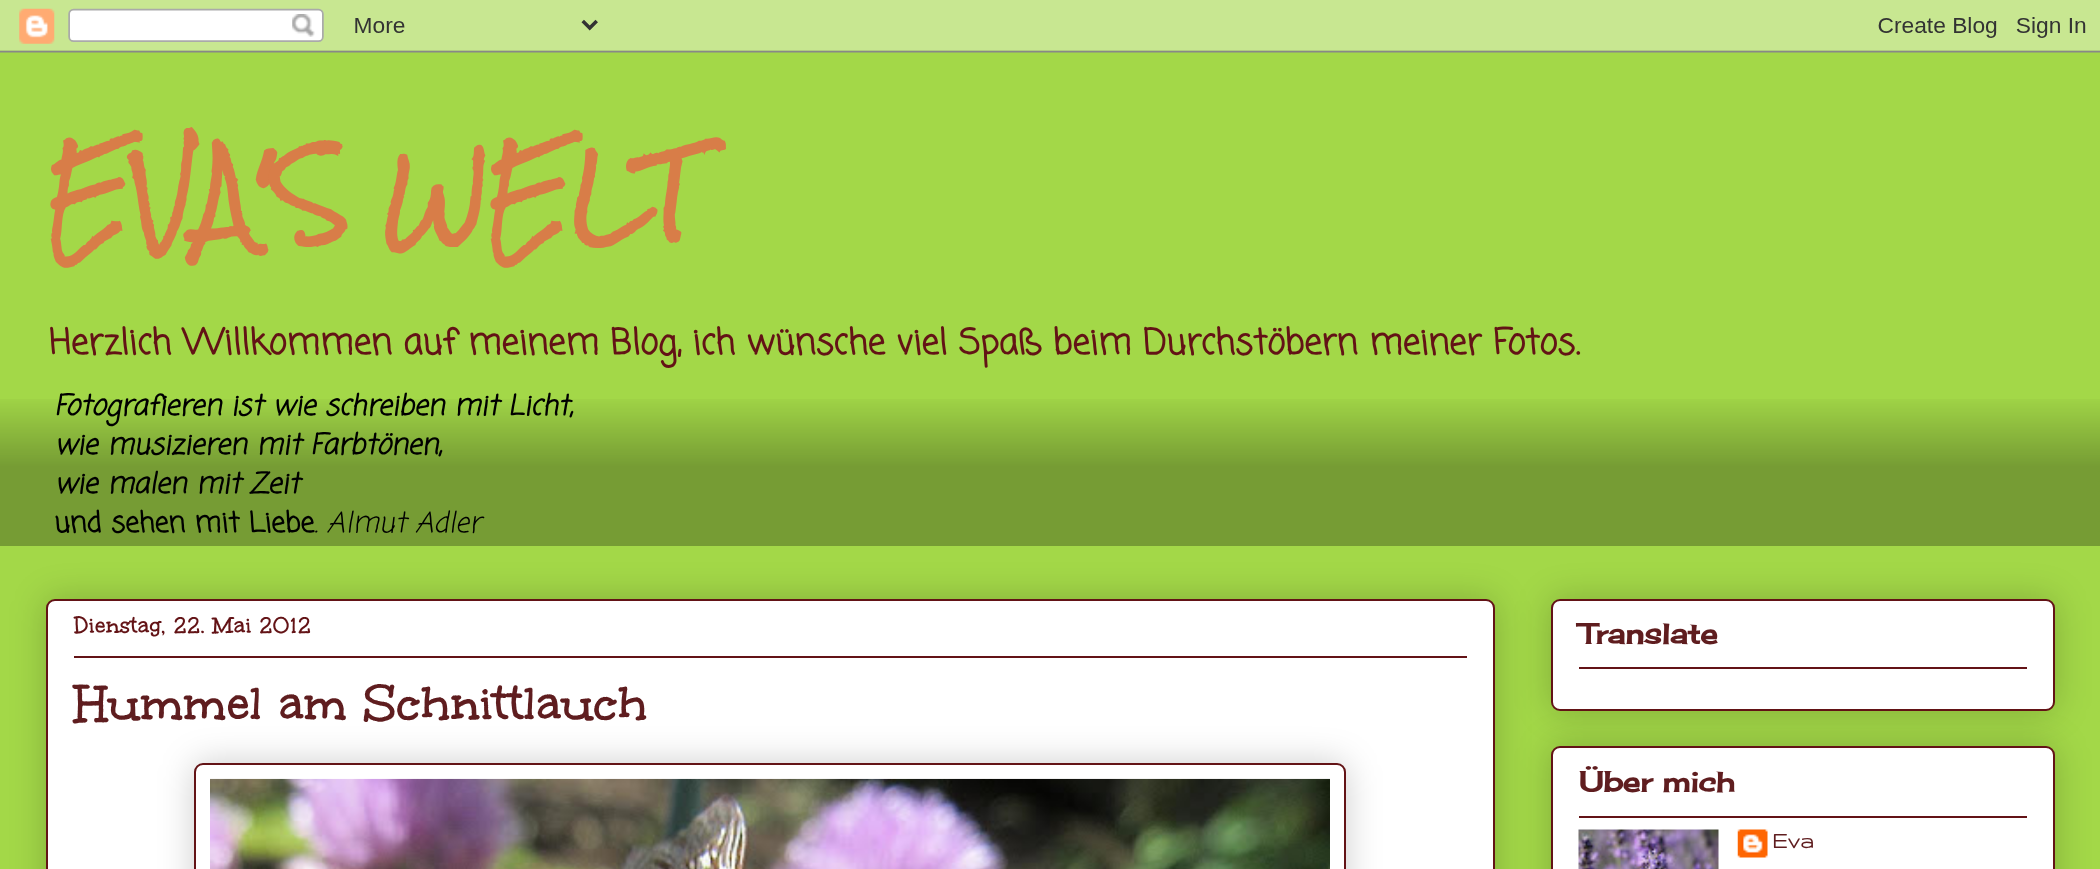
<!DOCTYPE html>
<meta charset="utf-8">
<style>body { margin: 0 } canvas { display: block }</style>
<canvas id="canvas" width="2100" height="869"></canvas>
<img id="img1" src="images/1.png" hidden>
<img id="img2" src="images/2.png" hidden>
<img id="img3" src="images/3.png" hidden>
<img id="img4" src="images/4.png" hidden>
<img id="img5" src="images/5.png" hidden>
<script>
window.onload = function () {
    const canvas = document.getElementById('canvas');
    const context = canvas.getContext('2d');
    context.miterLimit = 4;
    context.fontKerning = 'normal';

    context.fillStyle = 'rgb(163, 216, 72)';
    context.fillRect(0, 0, 2100, 869);
    context.drawImage(document.getElementById('img1'), 0, 0, 2100, 53);
    context.drawImage(document.getElementById('img2'), 0, 399, 2100, 147);
    context.fillStyle = 'rgba(0, 0, 0, 0.2)';
    context.filter = 'blur(17.5px)';
    context.beginPath();
    context.roundRect(46, 599, 1449, 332, 9);
    context.fill();
    context.filter = 'none';
    context.fillStyle = 'rgb(255, 255, 255)';
    context.beginPath();
    context.roundRect(47, 600, 1447, 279, 8);
    context.fill();
    context.strokeStyle = 'rgb(99, 19, 22)';
    context.lineWidth = 2;
    context.stroke();
    context.fillStyle = 'rgb(99, 19, 22)';
    context.fillRect(74, 656, 1393, 2);
    context.fillStyle = 'rgba(0, 0, 0, 0.2)';
    context.filter = 'blur(17.5px)';
    context.beginPath();
    context.roundRect(194, 763, 1152, 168, 9);
    context.fill();
    context.filter = 'none';
    context.fillStyle = 'rgb(255, 255, 255)';
    context.beginPath();
    context.roundRect(195, 764, 1150, 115, 8);
    context.fill();
    context.stroke();
    context.drawImage(document.getElementById('img3'), 210, 778, 1120, 91);
    context.fillStyle = 'rgba(0, 0, 0, 0.2)';
    context.filter = 'blur(17.5px)';
    context.beginPath();
    context.roundRect(1551, 599, 504, 112, 9);
    context.fill();
    context.filter = 'none';
    context.fillStyle = 'rgb(255, 255, 255)';
    context.beginPath();
    context.roundRect(1552, 600, 502, 110, 8);
    context.fill();
    context.stroke();
    context.fillStyle = 'rgb(99, 19, 22)';
    context.fillRect(1579, 667, 448, 2);
    context.fillStyle = 'rgba(0, 0, 0, 0.2)';
    context.filter = 'blur(17.5px)';
    context.beginPath();
    context.roundRect(1551, 746, 504, 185, 9);
    context.fill();
    context.filter = 'none';
    context.fillStyle = 'rgb(255, 255, 255)';
    context.beginPath();
    context.roundRect(1552, 747, 502, 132, 8);
    context.fill();
    context.stroke();
    context.fillStyle = 'rgb(99, 19, 22)';
    context.fillRect(1579, 816, 448, 2);
    context.drawImage(document.getElementById('img4'), 1578, 829, 141, 40);
    context.drawImage(document.getElementById('img5'), 1737, 829, 31, 29);
    context.font = 'bold 87.5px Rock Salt';
    context.fillStyle = 'rgb(216, 125, 72)';
    context.fillText('EVA\'S WELT', 46, 231);
    context.font = 'bold 35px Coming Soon';
    context.fillStyle = 'rgb(99, 19, 22)';
    context.fillText('Herzlich Willkommen auf meinem Blog, ich wünsche viel Spaß beim Durchstöbern meiner Fotos.', 49, 354);
    context.font = 'italic bold 28px Coming Soon';
    context.fillStyle = 'rgb(0, 0, 0)';
    context.fillText('Fotografieren ist wie schreiben mit Licht,', 54, 415);
    context.fillText('wie musizieren mit Farbtönen,', 54, 454);
    context.fillText('wie malen mit Zeit', 54, 493);
    context.font = 'bold 28px Coming Soon';
    context.fillText('und sehen mit Liebe', 54, 532);
    context.font = 'italic 28px Coming Soon';
    context.fillText('. Almut Adler', 314, 532);
    context.font = 'bold 24.5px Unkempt';
    context.fillStyle = 'rgb(99, 19, 22)';
    context.fillText('Dienstag, 22. Mai 2012', 74, 634);
    context.font = 'bold 52.5px Unkempt';
    context.fillStyle = 'rgb(95, 29, 31)';
    context.fillText('Hummel am Schnittlauch', 74, 722);
    context.font = 'bold 28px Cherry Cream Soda';
    context.fillText('Translate', 1579, 644);
    context.fillText('Über mich', 1579, 792);
    context.font = 'bold 24.5px Gruppo';
    context.fillText('Eva', 1772, 848);
};
</script>
